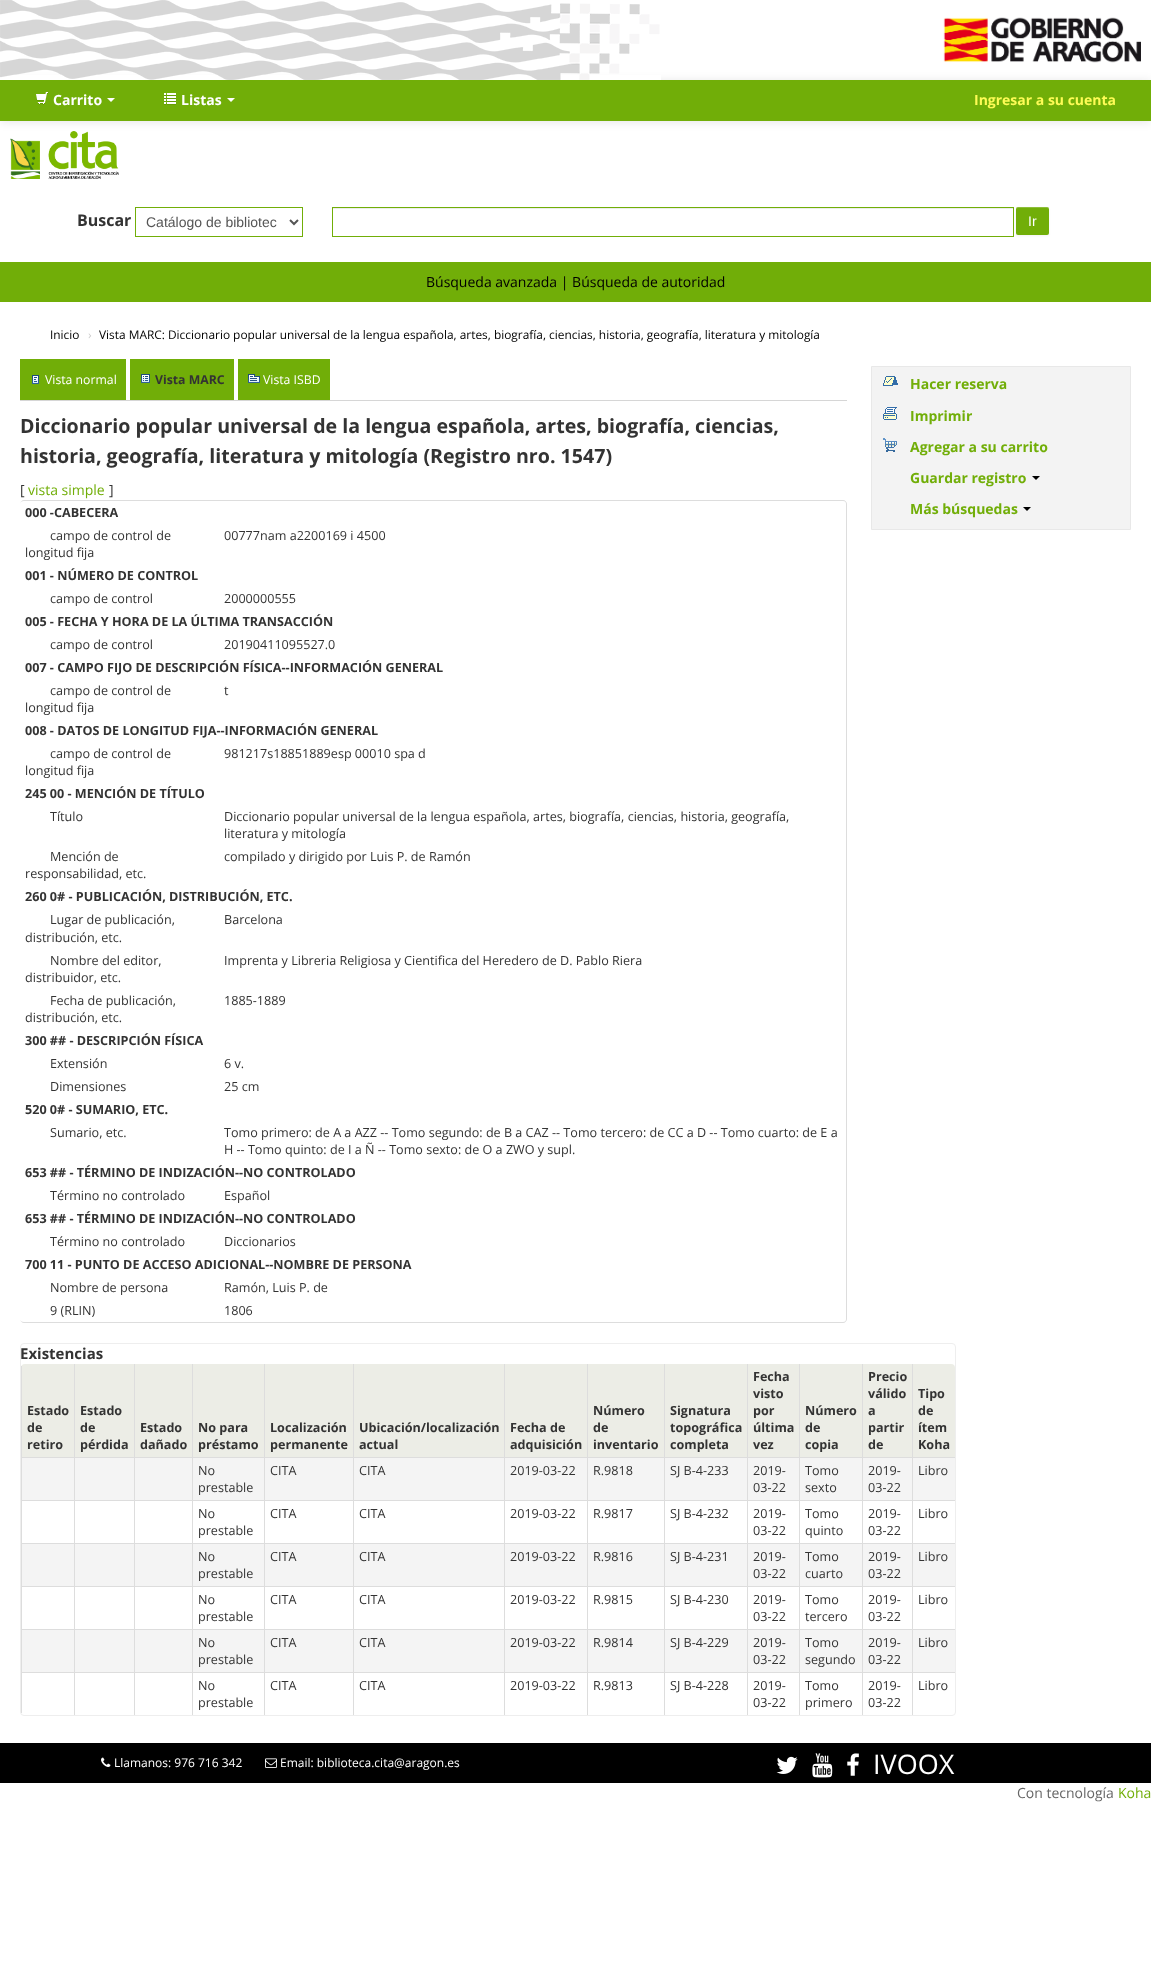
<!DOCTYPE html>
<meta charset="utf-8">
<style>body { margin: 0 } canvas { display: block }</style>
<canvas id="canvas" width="1151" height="1962"></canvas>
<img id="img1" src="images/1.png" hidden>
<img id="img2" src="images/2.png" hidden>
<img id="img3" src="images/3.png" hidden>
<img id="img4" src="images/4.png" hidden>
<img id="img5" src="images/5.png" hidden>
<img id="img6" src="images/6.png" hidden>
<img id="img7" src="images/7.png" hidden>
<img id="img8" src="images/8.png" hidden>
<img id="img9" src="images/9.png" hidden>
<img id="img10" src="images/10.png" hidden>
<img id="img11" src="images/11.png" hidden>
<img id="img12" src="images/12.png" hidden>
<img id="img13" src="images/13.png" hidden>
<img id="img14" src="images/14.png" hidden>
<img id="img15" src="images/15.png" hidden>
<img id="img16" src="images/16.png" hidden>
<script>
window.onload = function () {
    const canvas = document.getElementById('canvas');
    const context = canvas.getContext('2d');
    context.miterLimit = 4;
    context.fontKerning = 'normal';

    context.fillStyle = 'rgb(255, 255, 255)';
    context.fillRect(0, 0, 1151, 1962);
    context.fillStyle = 'rgba(0, 0, 0, 0.1)';
    context.filter = 'blur(5px)';
    context.beginPath();
    context.rect(0, 81, 1151, 41);
    context.fill();
    context.filter = 'none';
    context.fillStyle = 'rgb(255, 255, 255)';
    context.fillRect(0, 75, 661, 5);
    context.drawImage(document.getElementById('img1'), 0, 0, 660, 80);
    context.drawImage(document.getElementById('img2'), 943, 17, 198, 46);
    context.fillStyle = 'rgb(113, 174, 8)';
    context.fillRect(0, 80, 1151, 41);
    context.drawImage(document.getElementById('img3'), 36, 92, 12, 13);
    context.fillStyle = 'rgb(255, 255, 255)';
    context.beginPath();
    context.moveTo(107, 98);
    context.lineTo(115, 98);
    context.lineTo(111, 102);
    context.closePath();
    context.fill();
    context.drawImage(document.getElementById('img4'), 164, 93, 12, 12);
    context.beginPath();
    context.moveTo(227, 98);
    context.lineTo(235, 98);
    context.lineTo(231, 102);
    context.closePath();
    context.fill();
    context.drawImage(document.getElementById('img5'), 10, 131, 109, 48);
    context.strokeStyle = 'rgb(113, 174, 8)';
    context.strokeRect(135.5, 207.5, 167, 29);
    context.beginPath();
    context.moveTo(290, 220);
    context.lineTo(294, 224);
    context.lineTo(298, 220);
    context.strokeStyle = 'rgb(85, 85, 85)';
    context.lineWidth = 2;
    context.stroke();
    context.fillStyle = 'rgba(0, 0, 0, 0.05)';
    context.filter = 'blur(1px)';
    context.beginPath();
    context.roundRect(1016, 208, 33, 28, 2);
    context.fill();
    context.filter = 'none';
    context.fillStyle = 'rgb(236, 236, 236)';
    context.fillRect(333, 208, 680, 1);
    context.strokeStyle = 'rgb(113, 174, 8)';
    context.lineWidth = 1;
    context.strokeRect(332.5, 207.5, 681, 29);
    context.fillStyle = 'rgb(113, 174, 8)';
    context.beginPath();
    context.roundRect(1016, 207, 33, 28, 2);
    context.fill();
    context.fillStyle = 'rgba(255, 255, 255, 0.2)';
    context.beginPath();
    context.moveTo(1018, 208);
    context.lineTo(1047, 208);
    context.bezierCurveTo(1048, 208, 1049, 209, 1049, 210);
    context.bezierCurveTo(1049, 206, 1046, 207, 1042, 207);
    context.lineTo(1023, 207);
    context.bezierCurveTo(1019, 207, 1016, 206, 1016, 210);
    context.bezierCurveTo(1016, 209, 1017, 208, 1018, 208);
    context.closePath();
    context.fill();
    context.fillStyle = 'rgb(113, 174, 8)';
    context.fillRect(0, 262, 1151, 40);
    context.fillStyle = 'rgb(214, 214, 214)';
    context.fillRect(20, 400, 827, 1);
    context.fillStyle = 'rgb(113, 174, 8)';
    context.fillRect(20, 359, 106, 41);
    context.drawImage(document.getElementById('img6'), 32, 375, 7, 9);
    context.fillRect(130, 359, 104, 41);
    context.drawImage(document.getElementById('img7'), 141, 374, 9, 9);
    context.fillRect(238, 359, 92, 41);
    context.drawImage(document.getElementById('img8'), 248, 374, 12, 9);
    context.fillStyle = 'rgb(221, 221, 221)';
    context.beginPath();
    context.moveTo(24, 500);
    context.lineTo(843, 500);
    context.bezierCurveTo(845, 500, 847, 502, 847, 504);
    context.lineTo(847, 1319);
    context.bezierCurveTo(847, 1321, 845, 1323, 843, 1323);
    context.lineTo(24, 1323);
    context.bezierCurveTo(22, 1323, 20, 1321, 20, 1319);
    context.lineTo(20, 504);
    context.bezierCurveTo(20, 502, 22, 500, 24, 500);
    context.closePath();
    context.moveTo(24, 501);
    context.lineTo(843, 501);
    context.bezierCurveTo(845, 501, 846, 502, 846, 504);
    context.lineTo(846, 1319);
    context.bezierCurveTo(846, 1321, 845, 1322, 843, 1322);
    context.lineTo(24, 1322);
    context.bezierCurveTo(22, 1322, 20, 1321, 20, 1319);
    context.lineTo(20, 504);
    context.bezierCurveTo(20, 502, 22, 501, 24, 501);
    context.closePath();
    context.fill('evenodd');
    context.beginPath();
    context.roundRect(20.5, 1343.5, 935, 372, 3.5);
    context.strokeStyle = 'rgb(238, 238, 238)';
    context.stroke();
    context.fillStyle = 'rgb(236, 237, 230)';
    context.beginPath();
    context.roundRect(21, 1364, 53, 93, [4, 0, 0, 0]);
    context.fill();
    context.fillStyle = 'rgb(221, 221, 221)';
    context.fillRect(21, 1366, 1, 91);
    context.fillStyle = 'rgb(236, 237, 230)';
    context.fillRect(75, 1364, 59, 93);
    context.fillStyle = 'rgb(221, 221, 221)';
    context.fillRect(74, 1364, 1, 93);
    context.fillStyle = 'rgb(236, 237, 230)';
    context.fillRect(135, 1364, 57, 93);
    context.fillStyle = 'rgb(221, 221, 221)';
    context.fillRect(134, 1364, 1, 93);
    context.fillStyle = 'rgb(236, 237, 230)';
    context.fillRect(193, 1364, 71, 93);
    context.fillStyle = 'rgb(221, 221, 221)';
    context.fillRect(192, 1364, 1, 93);
    context.fillStyle = 'rgb(236, 237, 230)';
    context.fillRect(265, 1364, 88, 93);
    context.fillStyle = 'rgb(221, 221, 221)';
    context.fillRect(264, 1364, 1, 93);
    context.fillStyle = 'rgb(236, 237, 230)';
    context.fillRect(354, 1364, 150, 93);
    context.fillStyle = 'rgb(221, 221, 221)';
    context.fillRect(353, 1364, 1, 93);
    context.fillStyle = 'rgb(236, 237, 230)';
    context.fillRect(505, 1364, 82, 93);
    context.fillStyle = 'rgb(221, 221, 221)';
    context.fillRect(504, 1364, 1, 93);
    context.fillStyle = 'rgb(236, 237, 230)';
    context.fillRect(588, 1364, 76, 93);
    context.fillStyle = 'rgb(221, 221, 221)';
    context.fillRect(587, 1364, 1, 93);
    context.fillStyle = 'rgb(236, 237, 230)';
    context.fillRect(665, 1364, 82, 93);
    context.fillStyle = 'rgb(221, 221, 221)';
    context.fillRect(664, 1364, 1, 93);
    context.fillStyle = 'rgb(236, 237, 230)';
    context.fillRect(748, 1364, 51, 93);
    context.fillStyle = 'rgb(221, 221, 221)';
    context.fillRect(747, 1364, 1, 93);
    context.fillStyle = 'rgb(236, 237, 230)';
    context.fillRect(800, 1364, 62, 93);
    context.fillStyle = 'rgb(221, 221, 221)';
    context.fillRect(799, 1364, 1, 93);
    context.fillStyle = 'rgb(236, 237, 230)';
    context.fillRect(863, 1364, 49, 93);
    context.fillStyle = 'rgb(221, 221, 221)';
    context.fillRect(862, 1364, 1, 93);
    context.fillStyle = 'rgb(236, 237, 230)';
    context.beginPath();
    context.roundRect(912, 1364, 43, 93, [0, 4, 0, 0]);
    context.fill();
    context.fillStyle = 'rgb(221, 221, 221)';
    context.fillRect(912, 1364, 1, 93);
    context.fillStyle = 'rgb(244, 244, 244)';
    context.fillRect(22, 1458, 52, 42);
    context.fillStyle = 'rgb(221, 221, 221)';
    context.fillRect(21, 1457, 934, 1);
    context.fillRect(21, 1457, 1, 43);
    context.fillStyle = 'rgb(244, 244, 244)';
    context.fillRect(75, 1458, 59, 42);
    context.fillStyle = 'rgb(221, 221, 221)';
    context.fillRect(74, 1457, 1, 43);
    context.fillStyle = 'rgb(244, 244, 244)';
    context.fillRect(135, 1458, 57, 42);
    context.fillStyle = 'rgb(221, 221, 221)';
    context.fillRect(134, 1457, 1, 43);
    context.fillStyle = 'rgb(244, 244, 244)';
    context.fillRect(193, 1458, 71, 42);
    context.fillStyle = 'rgb(221, 221, 221)';
    context.fillRect(192, 1457, 1, 43);
    context.fillStyle = 'rgb(244, 244, 244)';
    context.fillRect(265, 1458, 88, 42);
    context.fillStyle = 'rgb(221, 221, 221)';
    context.fillRect(264, 1457, 1, 43);
    context.fillStyle = 'rgb(244, 244, 244)';
    context.fillRect(354, 1458, 150, 42);
    context.fillStyle = 'rgb(221, 221, 221)';
    context.fillRect(353, 1457, 1, 43);
    context.fillStyle = 'rgb(244, 244, 244)';
    context.fillRect(505, 1458, 82, 42);
    context.fillStyle = 'rgb(221, 221, 221)';
    context.fillRect(504, 1457, 1, 43);
    context.fillStyle = 'rgb(244, 244, 244)';
    context.fillRect(588, 1458, 76, 42);
    context.fillStyle = 'rgb(221, 221, 221)';
    context.fillRect(587, 1457, 1, 43);
    context.fillStyle = 'rgb(244, 244, 244)';
    context.fillRect(665, 1458, 82, 42);
    context.fillStyle = 'rgb(221, 221, 221)';
    context.fillRect(664, 1457, 1, 43);
    context.fillStyle = 'rgb(244, 244, 244)';
    context.fillRect(748, 1458, 51, 42);
    context.fillStyle = 'rgb(221, 221, 221)';
    context.fillRect(747, 1457, 1, 43);
    context.fillStyle = 'rgb(244, 244, 244)';
    context.fillRect(800, 1458, 62, 42);
    context.fillStyle = 'rgb(221, 221, 221)';
    context.fillRect(799, 1457, 1, 43);
    context.fillStyle = 'rgb(244, 244, 244)';
    context.fillRect(863, 1458, 49, 42);
    context.fillStyle = 'rgb(221, 221, 221)';
    context.fillRect(862, 1457, 1, 43);
    context.fillStyle = 'rgb(244, 244, 244)';
    context.fillRect(913, 1458, 42, 42);
    context.fillStyle = 'rgb(221, 221, 221)';
    context.fillRect(912, 1457, 1, 43);
    context.fillRect(21, 1500, 934, 1);
    context.fillRect(21, 1500, 1, 43);
    context.fillRect(74, 1500, 1, 43);
    context.fillRect(134, 1500, 1, 43);
    context.fillRect(192, 1500, 1, 43);
    context.fillRect(264, 1500, 1, 43);
    context.fillRect(353, 1500, 1, 43);
    context.fillRect(504, 1500, 1, 43);
    context.fillRect(587, 1500, 1, 43);
    context.fillRect(664, 1500, 1, 43);
    context.fillRect(747, 1500, 1, 43);
    context.fillRect(799, 1500, 1, 43);
    context.fillRect(862, 1500, 1, 43);
    context.fillRect(912, 1500, 1, 43);
    context.fillStyle = 'rgb(244, 244, 244)';
    context.fillRect(22, 1544, 52, 42);
    context.fillStyle = 'rgb(221, 221, 221)';
    context.fillRect(21, 1543, 934, 1);
    context.fillRect(21, 1543, 1, 43);
    context.fillStyle = 'rgb(244, 244, 244)';
    context.fillRect(75, 1544, 59, 42);
    context.fillStyle = 'rgb(221, 221, 221)';
    context.fillRect(74, 1543, 1, 43);
    context.fillStyle = 'rgb(244, 244, 244)';
    context.fillRect(135, 1544, 57, 42);
    context.fillStyle = 'rgb(221, 221, 221)';
    context.fillRect(134, 1543, 1, 43);
    context.fillStyle = 'rgb(244, 244, 244)';
    context.fillRect(193, 1544, 71, 42);
    context.fillStyle = 'rgb(221, 221, 221)';
    context.fillRect(192, 1543, 1, 43);
    context.fillStyle = 'rgb(244, 244, 244)';
    context.fillRect(265, 1544, 88, 42);
    context.fillStyle = 'rgb(221, 221, 221)';
    context.fillRect(264, 1543, 1, 43);
    context.fillStyle = 'rgb(244, 244, 244)';
    context.fillRect(354, 1544, 150, 42);
    context.fillStyle = 'rgb(221, 221, 221)';
    context.fillRect(353, 1543, 1, 43);
    context.fillStyle = 'rgb(244, 244, 244)';
    context.fillRect(505, 1544, 82, 42);
    context.fillStyle = 'rgb(221, 221, 221)';
    context.fillRect(504, 1543, 1, 43);
    context.fillStyle = 'rgb(244, 244, 244)';
    context.fillRect(588, 1544, 76, 42);
    context.fillStyle = 'rgb(221, 221, 221)';
    context.fillRect(587, 1543, 1, 43);
    context.fillStyle = 'rgb(244, 244, 244)';
    context.fillRect(665, 1544, 82, 42);
    context.fillStyle = 'rgb(221, 221, 221)';
    context.fillRect(664, 1543, 1, 43);
    context.fillStyle = 'rgb(244, 244, 244)';
    context.fillRect(748, 1544, 51, 42);
    context.fillStyle = 'rgb(221, 221, 221)';
    context.fillRect(747, 1543, 1, 43);
    context.fillStyle = 'rgb(244, 244, 244)';
    context.fillRect(800, 1544, 62, 42);
    context.fillStyle = 'rgb(221, 221, 221)';
    context.fillRect(799, 1543, 1, 43);
    context.fillStyle = 'rgb(244, 244, 244)';
    context.fillRect(863, 1544, 49, 42);
    context.fillStyle = 'rgb(221, 221, 221)';
    context.fillRect(862, 1543, 1, 43);
    context.fillStyle = 'rgb(244, 244, 244)';
    context.fillRect(913, 1544, 42, 42);
    context.fillStyle = 'rgb(221, 221, 221)';
    context.fillRect(912, 1543, 1, 43);
    context.fillRect(21, 1586, 934, 1);
    context.fillRect(21, 1586, 1, 43);
    context.fillRect(74, 1586, 1, 43);
    context.fillRect(134, 1586, 1, 43);
    context.fillRect(192, 1586, 1, 43);
    context.fillRect(264, 1586, 1, 43);
    context.fillRect(353, 1586, 1, 43);
    context.fillRect(504, 1586, 1, 43);
    context.fillRect(587, 1586, 1, 43);
    context.fillRect(664, 1586, 1, 43);
    context.fillRect(747, 1586, 1, 43);
    context.fillRect(799, 1586, 1, 43);
    context.fillRect(862, 1586, 1, 43);
    context.fillRect(912, 1586, 1, 43);
    context.fillStyle = 'rgb(244, 244, 244)';
    context.fillRect(22, 1630, 52, 42);
    context.fillStyle = 'rgb(221, 221, 221)';
    context.fillRect(21, 1629, 934, 1);
    context.fillRect(21, 1629, 1, 43);
    context.fillStyle = 'rgb(244, 244, 244)';
    context.fillRect(75, 1630, 59, 42);
    context.fillStyle = 'rgb(221, 221, 221)';
    context.fillRect(74, 1629, 1, 43);
    context.fillStyle = 'rgb(244, 244, 244)';
    context.fillRect(135, 1630, 57, 42);
    context.fillStyle = 'rgb(221, 221, 221)';
    context.fillRect(134, 1629, 1, 43);
    context.fillStyle = 'rgb(244, 244, 244)';
    context.fillRect(193, 1630, 71, 42);
    context.fillStyle = 'rgb(221, 221, 221)';
    context.fillRect(192, 1629, 1, 43);
    context.fillStyle = 'rgb(244, 244, 244)';
    context.fillRect(265, 1630, 88, 42);
    context.fillStyle = 'rgb(221, 221, 221)';
    context.fillRect(264, 1629, 1, 43);
    context.fillStyle = 'rgb(244, 244, 244)';
    context.fillRect(354, 1630, 150, 42);
    context.fillStyle = 'rgb(221, 221, 221)';
    context.fillRect(353, 1629, 1, 43);
    context.fillStyle = 'rgb(244, 244, 244)';
    context.fillRect(505, 1630, 82, 42);
    context.fillStyle = 'rgb(221, 221, 221)';
    context.fillRect(504, 1629, 1, 43);
    context.fillStyle = 'rgb(244, 244, 244)';
    context.fillRect(588, 1630, 76, 42);
    context.fillStyle = 'rgb(221, 221, 221)';
    context.fillRect(587, 1629, 1, 43);
    context.fillStyle = 'rgb(244, 244, 244)';
    context.fillRect(665, 1630, 82, 42);
    context.fillStyle = 'rgb(221, 221, 221)';
    context.fillRect(664, 1629, 1, 43);
    context.fillStyle = 'rgb(244, 244, 244)';
    context.fillRect(748, 1630, 51, 42);
    context.fillStyle = 'rgb(221, 221, 221)';
    context.fillRect(747, 1629, 1, 43);
    context.fillStyle = 'rgb(244, 244, 244)';
    context.fillRect(800, 1630, 62, 42);
    context.fillStyle = 'rgb(221, 221, 221)';
    context.fillRect(799, 1629, 1, 43);
    context.fillStyle = 'rgb(244, 244, 244)';
    context.fillRect(863, 1630, 49, 42);
    context.fillStyle = 'rgb(221, 221, 221)';
    context.fillRect(862, 1629, 1, 43);
    context.fillStyle = 'rgb(244, 244, 244)';
    context.fillRect(913, 1630, 42, 42);
    context.fillStyle = 'rgb(221, 221, 221)';
    context.fillRect(912, 1629, 1, 43);
    context.fillRect(21, 1672, 934, 1);
    context.fillRect(21, 1672, 1, 41);
    context.fillRect(74, 1672, 1, 43);
    context.fillRect(134, 1672, 1, 43);
    context.fillRect(192, 1672, 1, 43);
    context.fillRect(264, 1672, 1, 43);
    context.fillRect(353, 1672, 1, 43);
    context.fillRect(504, 1672, 1, 43);
    context.fillRect(587, 1672, 1, 43);
    context.fillRect(664, 1672, 1, 43);
    context.fillRect(747, 1672, 1, 43);
    context.fillRect(799, 1672, 1, 43);
    context.fillRect(862, 1672, 1, 43);
    context.fillRect(912, 1672, 1, 43);
    context.fillStyle = 'rgb(243, 243, 243)';
    context.beginPath();
    context.rect(871.5, 366.5, 259, 163);
    context.fill();
    context.strokeStyle = 'rgb(232, 232, 232)';
    context.stroke();
    context.drawImage(document.getElementById('img9'), 883, 376, 15, 10);
    context.drawImage(document.getElementById('img10'), 883, 407, 14, 13);
    context.drawImage(document.getElementById('img11'), 883, 438, 14, 14);
    context.fillStyle = 'rgb(0, 0, 0)';
    context.beginPath();
    context.moveTo(1032, 476);
    context.lineTo(1040, 476);
    context.lineTo(1036, 480);
    context.closePath();
    context.fill();
    context.beginPath();
    context.moveTo(1023, 507);
    context.lineTo(1031, 507);
    context.lineTo(1027, 511);
    context.closePath();
    context.fill();
    context.fillRect(0, 1743, 1151, 40);
    context.drawImage(document.getElementById('img12'), 101, 1757, 10, 10);
    context.drawImage(document.getElementById('img13'), 265, 1758, 12, 10);
    context.drawImage(document.getElementById('img14'), 776, 1756, 22, 18);
    context.drawImage(document.getElementById('img15'), 812, 1753, 21, 25);
    context.drawImage(document.getElementById('img16'), 847, 1753, 12, 23);
    context.font = 'bold 14px Open Sans';
    context.fillStyle = 'rgb(255, 255, 255)';
    context.fillText('Carrito', 53, 105);
    context.fillText('Listas', 181, 105);
    context.fillStyle = 'rgb(254, 251, 86)';
    context.fillText('Ingresar a su cuenta', 974, 105);
    context.font = 'bold 16px Open Sans';
    context.fillStyle = 'rgb(51, 51, 51)';
    context.fillText('Buscar', 77, 226);
    context.font = '14px Liberation Sans';
    context.fillStyle = 'rgb(85, 85, 85)';
    context.fillText('Catálogo de bibliotec', 146, 227);
    context.fillStyle = 'rgb(255, 255, 255)';
    context.fillText('Ir', 1028, 226);
    context.font = '14px Open Sans';
    context.fillStyle = 'rgb(0, 0, 0)';
    context.fillText('Búsqueda avanzada | Búsqueda de autoridad', 426, 287);
    context.font = '11.9px Open Sans';
    context.fillText('Inicio', 50, 339);
    context.fillStyle = 'rgb(204, 204, 204)';
    context.fillText('›', 88, 339);
    context.fillStyle = 'rgb(0, 0, 0)';
    context.fillText('Vista MARC: Diccionario popular universal de la lengua española, artes, biografía, ciencias, historia, geografía, literatura y mitología', 99, 339);
    context.font = '12.25px Open Sans';
    context.fillStyle = 'rgb(255, 255, 255)';
    context.fillText('Vista normal', 45, 384);
    context.font = 'bold 12.25px Open Sans';
    context.fillStyle = 'rgb(51, 51, 51)';
    context.fillText('Vista MARC', 155, 384);
    context.font = '12.25px Open Sans';
    context.fillStyle = 'rgb(255, 255, 255)';
    context.fillText('Vista ISBD', 263, 384);
    context.font = 'bold 19.6px Open Sans';
    context.fillStyle = 'rgb(51, 51, 51)';
    context.fillText('Diccionario popular universal de la lengua española, artes, biografía, ciencias,', 20, 433);
    context.fillText('historia, geografía, literatura y mitología (Registro nro. 1547)', 20, 463);
    context.font = '14px Open Sans';
    context.fillText('[', 20, 495);
    context.fillStyle = 'rgb(113, 174, 8)';
    context.fillText('vista simple', 28, 495);
    context.fillStyle = 'rgb(51, 51, 51)';
    context.fillText(']', 109, 495);
    context.font = 'bold 12.6px Open Sans';
    context.fillText('000 -CABECERA', 25, 517);
    context.font = '12.6px Open Sans';
    context.fillText('campo de control de', 50, 540);
    context.fillText('longitud fija', 25, 557);
    context.fillText('00777nam a2200169 i 4500', 224, 540);
    context.font = 'bold 12.6px Open Sans';
    context.fillText('001 - NÚMERO DE CONTROL', 25, 580);
    context.font = '12.6px Open Sans';
    context.fillText('campo de control', 50, 603);
    context.fillText('2000000555', 224, 603);
    context.font = 'bold 12.6px Open Sans';
    context.fillText('005 - FECHA Y HORA DE LA ÚLTIMA TRANSACCIÓN', 25, 626);
    context.font = '12.6px Open Sans';
    context.fillText('campo de control', 50, 649);
    context.fillText('20190411095527.0', 224, 649);
    context.font = 'bold 12.6px Open Sans';
    context.fillText('007 - CAMPO FIJO DE DESCRIPCIÓN FÍSICA--INFORMACIÓN GENERAL', 25, 672);
    context.font = '12.6px Open Sans';
    context.fillText('campo de control de', 50, 695);
    context.fillText('longitud fija', 25, 712);
    context.fillText('t', 224, 695);
    context.font = 'bold 12.6px Open Sans';
    context.fillText('008 - DATOS DE LONGITUD FIJA--INFORMACIÓN GENERAL', 25, 735);
    context.font = '12.6px Open Sans';
    context.fillText('campo de control de', 50, 758);
    context.fillText('longitud fija', 25, 775);
    context.fillText('981217s18851889esp 00010 spa d', 224, 758);
    context.font = 'bold 12.6px Open Sans';
    context.fillText('245 00 - MENCIÓN DE TÍTULO', 25, 798);
    context.font = '12.6px Open Sans';
    context.fillText('Título', 50, 821);
    context.fillText('Diccionario popular universal de la lengua española, artes, biografía, ciencias, historia, geografía,', 224, 821);
    context.fillText('literatura y mitología', 224, 838);
    context.fillText('Mención de', 50, 861);
    context.fillText('responsabilidad, etc.', 25, 878);
    context.fillText('compilado y dirigido por Luis P. de Ramón', 224, 861);
    context.font = 'bold 12.6px Open Sans';
    context.fillText('260 0# - PUBLICACIÓN, DISTRIBUCIÓN, ETC.', 25, 901);
    context.font = '12.6px Open Sans';
    context.fillText('Lugar de publicación,', 50, 924);
    context.fillText('distribución, etc.', 25, 942);
    context.fillText('Barcelona', 224, 924);
    context.fillText('Nombre del editor,', 50, 965);
    context.fillText('distribuidor, etc.', 25, 982);
    context.fillText('Imprenta y Libreria Religiosa y Cientifica del Heredero de D. Pablo Riera', 224, 965);
    context.fillText('Fecha de publicación,', 50, 1005);
    context.fillText('distribución, etc.', 25, 1022);
    context.fillText('1885-1889', 224, 1005);
    context.font = 'bold 12.6px Open Sans';
    context.fillText('300 ## - DESCRIPCIÓN FÍSICA', 25, 1045);
    context.font = '12.6px Open Sans';
    context.fillText('Extensión', 50, 1068);
    context.fillText('6 v.', 224, 1068);
    context.fillText('Dimensiones', 50, 1091);
    context.fillText('25 cm', 224, 1091);
    context.font = 'bold 12.6px Open Sans';
    context.fillText('520 0# - SUMARIO, ETC.', 25, 1114);
    context.font = '12.6px Open Sans';
    context.fillText('Sumario, etc.', 50, 1137);
    context.fillText('Tomo primero: de A a AZZ -- Tomo segundo: de B a CAZ -- Tomo tercero: de CC a D -- Tomo cuarto: de E a', 224, 1137);
    context.fillText('H -- Tomo quinto: de I a Ñ -- Tomo sexto: de O a ZWO y supl.', 224, 1154);
    context.font = 'bold 12.6px Open Sans';
    context.fillText('653 ## - TÉRMINO DE INDIZACIÓN--NO CONTROLADO', 25, 1177);
    context.font = '12.6px Open Sans';
    context.fillText('Término no controlado', 50, 1200);
    context.fillText('Español', 224, 1200);
    context.font = 'bold 12.6px Open Sans';
    context.fillText('653 ## - TÉRMINO DE INDIZACIÓN--NO CONTROLADO', 25, 1223);
    context.font = '12.6px Open Sans';
    context.fillText('Término no controlado', 50, 1246);
    context.fillText('Diccionarios', 224, 1246);
    context.font = 'bold 12.6px Open Sans';
    context.fillText('700 11 - PUNTO DE ACCESO ADICIONAL--NOMBRE DE PERSONA', 25, 1269);
    context.font = '12.6px Open Sans';
    context.fillText('Nombre de persona', 50, 1292);
    context.fillText('Ramón, Luis P. de', 224, 1292);
    context.fillText('9 (RLIN)', 50, 1315);
    context.fillText('1806', 224, 1315);
    context.font = 'bold 15px Open Sans';
    context.fillText('Existencias', 20, 1359);
    context.font = 'bold 12.6px Open Sans';
    context.fillText('Estado', 27, 1415);
    context.fillText('de', 27, 1432);
    context.fillText('retiro', 27, 1449);
    context.fillText('Estado', 80, 1415);
    context.fillText('de', 80, 1432);
    context.fillText('pérdida', 80, 1449);
    context.fillText('Estado', 140, 1432);
    context.fillText('dañado', 140, 1449);
    context.fillText('No para', 198, 1432);
    context.fillText('préstamo', 198, 1449);
    context.fillText('Localización', 270, 1432);
    context.fillText('permanente', 270, 1449);
    context.fillText('Ubicación/localización', 359, 1432);
    context.fillText('actual', 359, 1449);
    context.fillText('Fecha de', 510, 1432);
    context.fillText('adquisición', 510, 1449);
    context.fillText('Número', 593, 1415);
    context.fillText('de', 593, 1432);
    context.fillText('inventario', 593, 1449);
    context.fillText('Signatura', 670, 1415);
    context.fillText('topográfica', 670, 1432);
    context.fillText('completa', 670, 1449);
    context.fillText('Fecha', 753, 1381);
    context.fillText('visto', 753, 1398);
    context.fillText('por', 753, 1415);
    context.fillText('última', 753, 1432);
    context.fillText('vez', 753, 1449);
    context.fillText('Número', 805, 1415);
    context.fillText('de', 805, 1432);
    context.fillText('copia', 805, 1449);
    context.fillText('Precio', 868, 1381);
    context.fillText('válido', 868, 1398);
    context.fillText('a', 868, 1415);
    context.fillText('partir', 868, 1432);
    context.fillText('de', 868, 1449);
    context.fillText('Tipo', 918, 1398);
    context.fillText('de', 918, 1415);
    context.fillText('ítem', 918, 1432);
    context.fillText('Koha', 918, 1449);
    context.font = '12.6px Open Sans';
    context.fillText('No', 198, 1475);
    context.fillText('prestable', 198, 1492);
    context.fillText('CITA', 270, 1475);
    context.fillText('CITA', 359, 1475);
    context.fillText('2019-03-22', 510, 1475);
    context.fillText('R.9818', 593, 1475);
    context.fillText('SJ B-4-233', 670, 1475);
    context.fillText('2019-', 753, 1475);
    context.fillText('03-22', 753, 1492);
    context.fillText('Tomo', 805, 1475);
    context.fillText('sexto', 805, 1492);
    context.fillText('2019-', 868, 1475);
    context.fillText('03-22', 868, 1492);
    context.fillText('Libro', 918, 1475);
    context.fillText('No', 198, 1518);
    context.fillText('prestable', 198, 1535);
    context.fillText('CITA', 270, 1518);
    context.fillText('CITA', 359, 1518);
    context.fillText('2019-03-22', 510, 1518);
    context.fillText('R.9817', 593, 1518);
    context.fillText('SJ B-4-232', 670, 1518);
    context.fillText('2019-', 753, 1518);
    context.fillText('03-22', 753, 1535);
    context.fillText('Tomo', 805, 1518);
    context.fillText('quinto', 805, 1535);
    context.fillText('2019-', 868, 1518);
    context.fillText('03-22', 868, 1535);
    context.fillText('Libro', 918, 1518);
    context.fillText('No', 198, 1561);
    context.fillText('prestable', 198, 1578);
    context.fillText('CITA', 270, 1561);
    context.fillText('CITA', 359, 1561);
    context.fillText('2019-03-22', 510, 1561);
    context.fillText('R.9816', 593, 1561);
    context.fillText('SJ B-4-231', 670, 1561);
    context.fillText('2019-', 753, 1561);
    context.fillText('03-22', 753, 1578);
    context.fillText('Tomo', 805, 1561);
    context.fillText('cuarto', 805, 1578);
    context.fillText('2019-', 868, 1561);
    context.fillText('03-22', 868, 1578);
    context.fillText('Libro', 918, 1561);
    context.fillText('No', 198, 1604);
    context.fillText('prestable', 198, 1621);
    context.fillText('CITA', 270, 1604);
    context.fillText('CITA', 359, 1604);
    context.fillText('2019-03-22', 510, 1604);
    context.fillText('R.9815', 593, 1604);
    context.fillText('SJ B-4-230', 670, 1604);
    context.fillText('2019-', 753, 1604);
    context.fillText('03-22', 753, 1621);
    context.fillText('Tomo', 805, 1604);
    context.fillText('tercero', 805, 1621);
    context.fillText('2019-', 868, 1604);
    context.fillText('03-22', 868, 1621);
    context.fillText('Libro', 918, 1604);
    context.fillText('No', 198, 1647);
    context.fillText('prestable', 198, 1664);
    context.fillText('CITA', 270, 1647);
    context.fillText('CITA', 359, 1647);
    context.fillText('2019-03-22', 510, 1647);
    context.fillText('R.9814', 593, 1647);
    context.fillText('SJ B-4-229', 670, 1647);
    context.fillText('2019-', 753, 1647);
    context.fillText('03-22', 753, 1664);
    context.fillText('Tomo', 805, 1647);
    context.fillText('segundo', 805, 1664);
    context.fillText('2019-', 868, 1647);
    context.fillText('03-22', 868, 1664);
    context.fillText('Libro', 918, 1647);
    context.fillText('No', 198, 1690);
    context.fillText('prestable', 198, 1707);
    context.fillText('CITA', 270, 1690);
    context.fillText('CITA', 359, 1690);
    context.fillText('2019-03-22', 510, 1690);
    context.fillText('R.9813', 593, 1690);
    context.fillText('SJ B-4-228', 670, 1690);
    context.fillText('2019-', 753, 1690);
    context.fillText('03-22', 753, 1707);
    context.fillText('Tomo', 805, 1690);
    context.fillText('primero', 805, 1707);
    context.fillText('2019-', 868, 1690);
    context.fillText('03-22', 868, 1707);
    context.fillText('Libro', 918, 1690);
    context.font = 'bold 14px Open Sans';
    context.fillStyle = 'rgb(113, 174, 8)';
    context.fillText('Hacer reserva', 910, 389);
    context.fillText('Imprimir', 910, 421);
    context.fillText('Agregar a su carrito', 910, 452);
    context.fillText('Guardar registro', 910, 483);
    context.fillText('Más búsquedas', 910, 514);
    context.font = '12px Open Sans';
    context.fillStyle = 'rgb(255, 255, 255)';
    context.fillText('Llamanos: 976 716 342', 114, 1767);
    context.fillText('Email: biblioteca.cita@aragon.es', 280, 1767);
    context.font = '27px Open Sans';
    context.fillText('IVOOX', 873, 1774);
    context.font = '14px Open Sans';
    context.fillStyle = 'rgb(102, 102, 102)';
    context.fillText('Con tecnología', 1017, 1798);
    context.fillStyle = 'rgb(113, 174, 8)';
    context.fillText('Koha', 1118, 1798);
};
</script>
